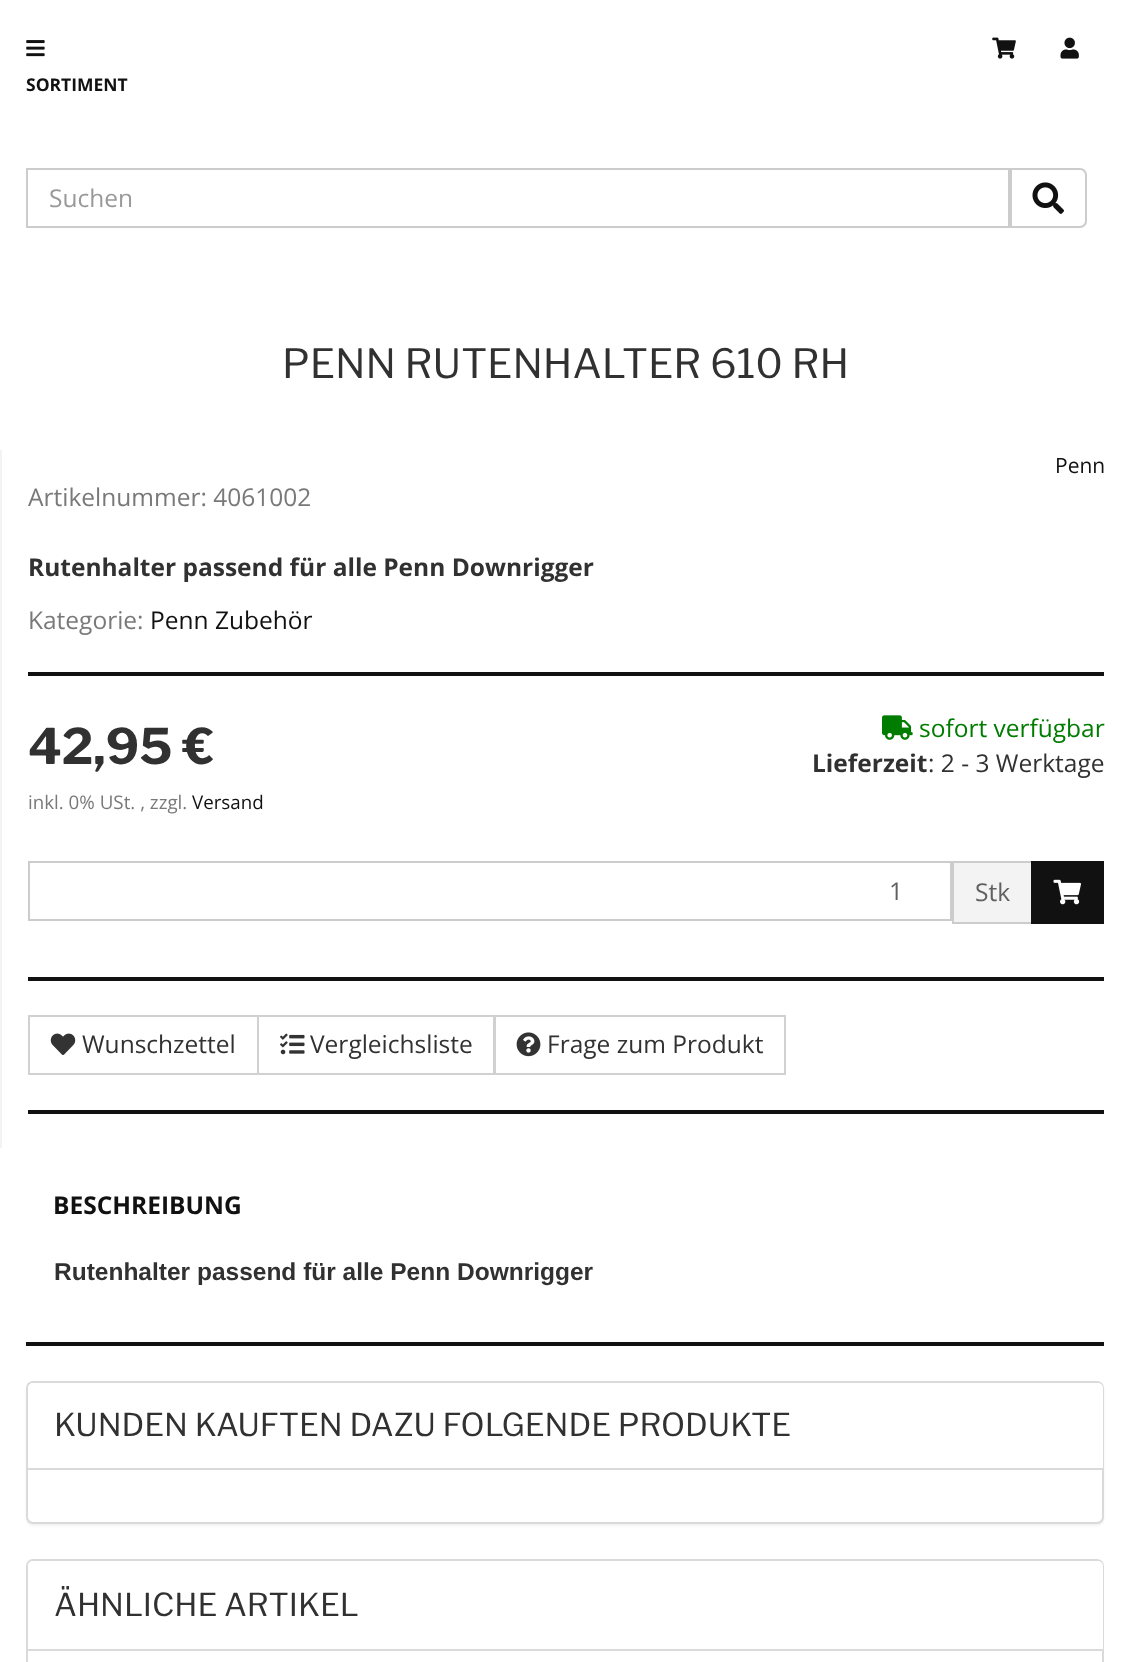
<!DOCTYPE html>
<meta charset="utf-8">
<style>body { margin: 0 } canvas { display: block }</style>
<canvas id="canvas" width="1130" height="1662"></canvas>
<img id="img1" src="images/1.png" hidden>
<img id="img2" src="images/2.png" hidden>
<img id="img3" src="images/3.png" hidden>
<img id="img4" src="images/4.png" hidden>
<img id="img5" src="images/5.png" hidden>
<img id="img6" src="images/6.png" hidden>
<img id="img7" src="images/7.png" hidden>
<img id="img8" src="images/8.png" hidden>
<img id="img9" src="images/9.png" hidden>
<script>
window.onload = function () {
    const canvas = document.getElementById('canvas');
    const context = canvas.getContext('2d');
    context.miterLimit = 4;
    context.fontKerning = 'normal';

    context.fillStyle = 'rgb(255, 255, 255)';
    context.fillRect(0, 0, 1130, 1662);
    context.drawImage(document.getElementById('img1'), 992, 37, 24, 22);
    context.drawImage(document.getElementById('img2'), 1060, 37, 19, 22);
    context.drawImage(document.getElementById('img3'), 26, 40, 19, 17);
    context.strokeStyle = 'rgb(204, 204, 204)';
    context.lineWidth = 2;
    context.strokeRect(27, 169, 982, 58);
    context.beginPath();
    context.roundRect(1011, 169, 75, 58, [0, 6, 6, 0]);
    context.stroke();
    context.drawImage(document.getElementById('img4'), 1032, 182, 32, 32);
    context.fillStyle = 'rgb(243, 243, 243)';
    context.fillRect(0, 450, 2, 698);
    context.fillStyle = 'rgb(17, 17, 17)';
    context.fillRect(28, 672, 1076, 4);
    context.drawImage(document.getElementById('img5'), 882, 715, 31, 25);
    context.strokeRect(29, 862, 922, 58);
    context.fillStyle = 'rgb(243, 243, 243)';
    context.beginPath();
    context.rect(953, 862, 79, 61);
    context.fill();
    context.stroke();
    context.fillStyle = 'rgb(17, 17, 17)';
    context.fillRect(1031, 861, 73, 63);
    context.drawImage(document.getElementById('img6'), 1053, 879, 28, 26);
    context.fillRect(28, 977, 1076, 4);
    context.strokeStyle = 'rgb(209, 209, 209)';
    context.strokeRect(29, 1016, 229, 58);
    context.drawImage(document.getElementById('img7'), 50, 1033, 26, 22);
    context.strokeRect(258, 1016, 236, 58);
    context.drawImage(document.getElementById('img8'), 280, 1033, 25, 22);
    context.strokeRect(495, 1016, 290, 58);
    context.drawImage(document.getElementById('img9'), 516, 1032, 25, 25);
    context.fillRect(28, 1110, 1076, 4);
    context.fillRect(26, 1342, 1078, 4);
    context.fillStyle = 'rgba(0, 0, 0, 0.05)';
    context.filter = 'blur(1px)';
    context.beginPath();
    context.roundRect(26, 1383, 1078, 143, 7);
    context.fill();
    context.filter = 'none';
    context.fillStyle = 'rgb(255, 255, 255)';
    context.beginPath();
    context.roundRect(27, 1382, 1076, 141, 6);
    context.fill();
    context.strokeStyle = 'rgb(218, 218, 218)';
    context.stroke();
    context.beginPath();
    context.roundRect(28, 1383, 1075, 87, [5, 5, 0, 0]);
    context.fill();
    context.fillStyle = 'rgb(218, 218, 218)';
    context.fillRect(28, 1468, 1075, 2);
    context.beginPath();
    context.roundRect(27, 1560, 1076, 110, 6);
    context.stroke();
    context.fillStyle = 'rgb(255, 255, 255)';
    context.beginPath();
    context.roundRect(28, 1561, 1075, 89, [5, 5, 0, 0]);
    context.fill();
    context.fillStyle = 'rgb(218, 218, 218)';
    context.fillRect(28, 1649, 1075, 2);
    context.font = 'bold 17.5px Open Sans';
    context.fillStyle = 'rgb(17, 17, 17)';
    context.fillText('SORTIMENT', 26, 91);
    context.font = '24.5px Open Sans';
    context.fillStyle = 'rgb(153, 153, 153)';
    context.fillText('Suchen', 49, 207);
    context.font = '40.25px Libre Franklin';
    context.fillStyle = 'rgb(49, 49, 49)';
    context.fillText('PENN RUTENHALTER 610 RH', 282, 378);
    context.font = '21px Open Sans';
    context.fillStyle = 'rgb(17, 17, 17)';
    context.fillText('Penn', 1055, 473);
    context.font = '24.5px Open Sans';
    context.fillStyle = 'rgb(121, 121, 121)';
    context.fillText('Artikelnummer: 4061002', 28, 506);
    context.font = 'bold 24.5px Open Sans';
    context.fillStyle = 'rgb(49, 49, 49)';
    context.fillText('Rutenhalter passend für alle Penn Downrigger', 28, 576);
    context.font = '24.5px Open Sans';
    context.fillStyle = 'rgb(121, 121, 121)';
    context.fillText('Kategorie:', 28, 629);
    context.fillStyle = 'rgb(17, 17, 17)';
    context.fillText('Penn Zubehör', 150, 629);
    context.font = 'bold 49px Libre Franklin';
    context.fillStyle = 'rgb(49, 49, 49)';
    context.fillText('42,95 €', 28, 764);
    context.font = '18.75px Open Sans';
    context.fillStyle = 'rgb(121, 121, 121)';
    context.fillText('inkl. 0% USt. , zzgl.', 28, 809);
    context.fillStyle = 'rgb(17, 17, 17)';
    context.fillText('Versand', 192, 809);
    context.font = '24.5px Open Sans';
    context.fillStyle = 'rgb(0, 124, 0)';
    context.fillText('sofort verfügbar', 919, 737);
    context.font = 'bold 24.5px Open Sans';
    context.fillStyle = 'rgb(49, 49, 49)';
    context.fillText('Lieferzeit', 812, 772);
    context.font = '24.5px Open Sans';
    context.fillText(': 2 - 3 Werktage', 928, 772);
    context.fillStyle = 'rgb(96, 96, 96)';
    context.fillText('1', 889, 900);
    context.fillText('Stk', 975, 901);
    context.fillStyle = 'rgb(49, 49, 49)';
    context.fillText('Wunschzettel', 82, 1053);
    context.fillText('Vergleichsliste', 310, 1053);
    context.fillText('Frage zum Produkt', 547, 1053);
    context.font = 'bold 24.5px Open Sans';
    context.fillStyle = 'rgb(17, 17, 17)';
    context.fillText('BESCHREIBUNG', 53, 1214);
    context.font = 'bold 24.5px Liberation Sans';
    context.fillStyle = 'rgb(49, 49, 49)';
    context.fillText('Rutenhalter passend für alle Penn Downrigger', 54, 1280);
    context.font = '31.5px Libre Franklin';
    context.fillText('KUNDEN KAUFTEN DAZU FOLGENDE PRODUKTE', 54, 1436);
    context.fillText('ÄHNLICHE ARTIKEL', 54, 1616);
};
</script>
